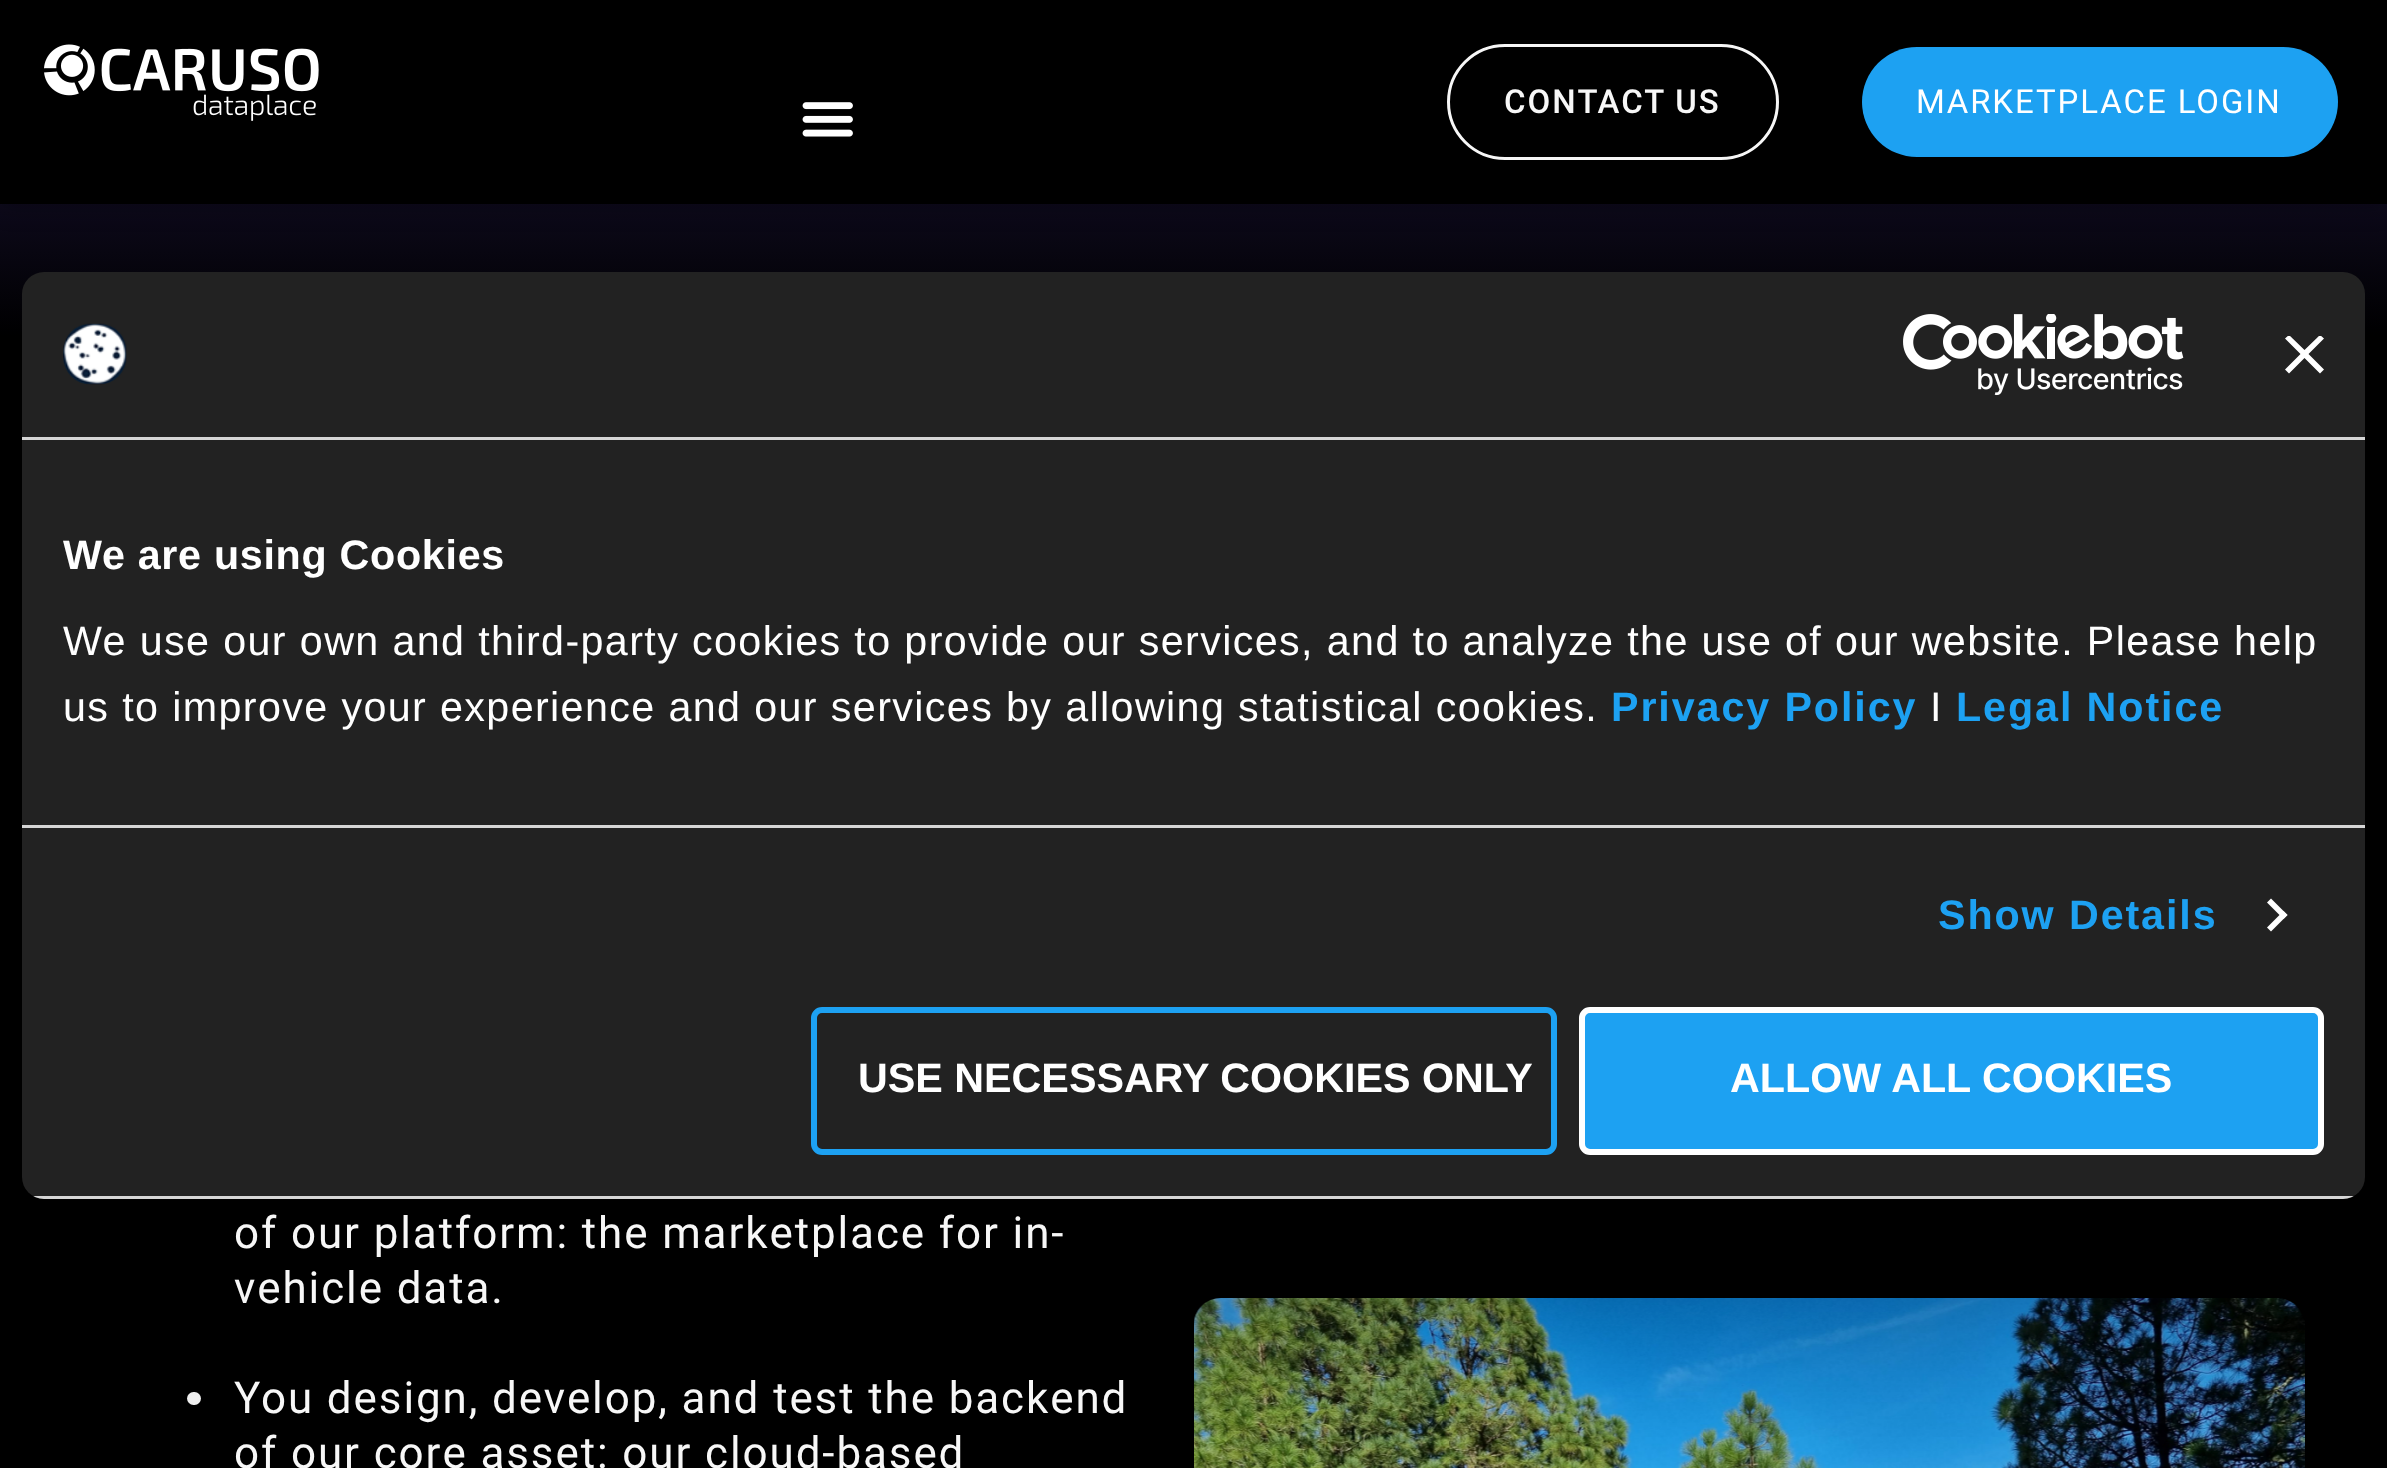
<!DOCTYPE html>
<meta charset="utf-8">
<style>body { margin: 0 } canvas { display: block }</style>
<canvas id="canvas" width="2387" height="1468"></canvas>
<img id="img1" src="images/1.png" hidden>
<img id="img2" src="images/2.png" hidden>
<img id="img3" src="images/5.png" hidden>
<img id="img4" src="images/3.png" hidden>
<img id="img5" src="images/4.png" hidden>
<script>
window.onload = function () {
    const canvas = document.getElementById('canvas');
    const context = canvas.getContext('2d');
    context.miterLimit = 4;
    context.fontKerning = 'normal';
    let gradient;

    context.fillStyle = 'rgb(255, 255, 255)';
    context.fillRect(0, 0, 2387, 1468);
    gradient = context.createLinearGradient(1193, -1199, 1194, 341);
    gradient.addColorStop(0.5, 'rgb(77, 59, 154)');
    gradient.addColorStop(1, 'rgb(0, 0, 0)');
    context.fillStyle = gradient;
    context.fillRect(0, 204, 2387, 137);
    context.fillStyle = 'rgba(0, 0, 0, 0.2)';
    context.filter = 'blur(11px)';
    context.beginPath();
    context.rect(0, 6, 2387, 203);
    context.fill();
    context.filter = 'none';
    context.fillStyle = 'rgb(0, 0, 0)';
    context.fillRect(0, 0, 2387, 204);
    context.drawImage(document.getElementById('img1'), 44, 44, 275, 77);
    context.drawImage(document.getElementById('img2'), 802, 102, 51, 35);
    context.beginPath();
    context.roundRect(1448.5, 45.5, 329, 113, 56.5);
    context.strokeStyle = 'rgb(247, 247, 247)';
    context.lineWidth = 3;
    context.stroke();
    context.fillStyle = 'rgb(29, 161, 242)';
    context.beginPath();
    context.roundRect(1862, 47, 476, 110, 55);
    context.fill();
    context.fillStyle = 'rgb(0, 0, 0)';
    context.fillRect(0, 341, 2387, 1127);
    context.fillStyle = 'rgb(247, 247, 247)';
    context.beginPath();
    context.roundRect(187, 1392, 14, 13, 6.5);
    context.fill();
    context.drawImage(document.getElementById('img3'), 1194, 1298, 1111, 170);
    context.fillStyle = 'rgba(0, 0, 0, 0.3)';
    context.filter = 'blur(93.5px)';
    context.beginPath();
    context.roundRect(22, 360, 2343, 927, 22);
    context.fill();
    context.filter = 'none';
    context.fillStyle = 'rgb(34, 34, 34)';
    context.beginPath();
    context.roundRect(22, 272, 2343, 927, 22);
    context.fill();
    context.fillStyle = 'rgb(214, 214, 214)';
    context.fillRect(22, 437, 2343, 3);
    context.drawImage(document.getElementById('img4'), 63, 323, 64, 62);
    context.drawImage(document.getElementById('img5'), 1903, 314, 281, 82);
    context.save();
    context.beginPath();
    context.rect(2285, 336, 39, 38);
    context.clip();
    context.fillStyle = 'rgb(255, 255, 255)';
    context.beginPath();
    context.moveTo(2324, 338.5);
    context.lineTo(2320, 335);
    context.lineTo(2304.5, 350);
    context.lineTo(2289, 335);
    context.lineTo(2285, 338.5);
    context.lineTo(2300.5, 354);
    context.lineTo(2285, 369.5);
    context.lineTo(2289, 373.5);
    context.lineTo(2304.5, 358);
    context.lineTo(2320, 373.5);
    context.lineTo(2324, 369.5);
    context.lineTo(2308.5, 354);
    context.closePath();
    context.fill();
    context.restore();
    context.fillRect(22, 825, 2343, 3);
    context.fillStyle = 'rgb(255, 255, 255)';
    context.beginPath();
    context.moveTo(2271, 898.5);
    context.lineTo(2287.5, 915);
    context.lineTo(2283.5, 919);
    context.lineTo(2267, 902.5);
    context.closePath();
    context.fill();
    context.beginPath();
    context.moveTo(2283.5, 911);
    context.lineTo(2287.5, 915);
    context.lineTo(2271, 931.5);
    context.lineTo(2267, 927.5);
    context.closePath();
    context.fill();
    context.save();
    context.beginPath();
    context.roundRect(22, 272, 2343, 927, 22);
    context.clip();
    context.fillStyle = 'rgb(214, 214, 214)';
    context.fillRect(33, 1196, 2321, 3);
    context.restore();
    context.beginPath();
    context.roundRect(814, 1010, 740, 142, 8);
    context.strokeStyle = 'rgb(29, 161, 242)';
    context.lineWidth = 6;
    context.stroke();
    context.fillStyle = 'rgb(29, 161, 242)';
    context.beginPath();
    context.roundRect(1582, 1010, 739, 142, 8);
    context.fill();
    context.strokeStyle = 'rgb(255, 255, 255)';
    context.stroke();
    context.letterSpacing = '1.9px';
    context.font = '500 33px Roboto';
    context.fillStyle = 'rgb(247, 247, 247)';
    context.fillText('CONTACT US', 1504, 113);
    context.font = '33px Roboto';
    context.fillStyle = 'rgb(255, 255, 255)';
    context.fillText('MARKETPLACE LOGIN', 1916, 113);
    context.letterSpacing = '0.7px';
    context.font = 'bold 41.25px Liberation Sans';
    context.fillText('We are using Cookies', 63, 569);
    context.letterSpacing = '1.38px';
    context.font = '41.25px Liberation Sans';
    context.fillText('We use our own and third-party cookies to provide our services, and to analyze the use of our website. Please help', 63, 655);
    context.fillText('us to improve your experience and our services by allowing statistical cookies.', 63, 721);
    context.letterSpacing = '1.9px';
    context.font = 'bold 41.25px Liberation Sans';
    context.fillStyle = 'rgb(29, 161, 242)';
    context.fillText('Privacy Policy', 1611, 721);
    context.letterSpacing = '1.38px';
    context.font = '41.25px Liberation Sans';
    context.fillStyle = 'rgb(255, 255, 255)';
    context.fillText('I', 1930, 721);
    context.letterSpacing = '1.9px';
    context.font = 'bold 41.25px Liberation Sans';
    context.fillStyle = 'rgb(29, 161, 242)';
    context.fillText('Legal Notice', 1956, 721);
    context.fillText('Show Details', 1938, 929);
    context.letterSpacing = '0px';
    context.fillStyle = 'rgb(255, 255, 255)';
    context.fillText('USE NECESSARY COOKIES ONLY', 858, 1092);
    context.fillText('ALLOW ALL COOKIES', 1730, 1092);
    context.letterSpacing = '1.9px';
    context.font = '44px Roboto';
    context.fillStyle = 'rgb(247, 247, 247)';
    context.fillText('of our platform: the marketplace for in-', 234, 1248);
    context.fillText('vehicle data.', 234, 1303);
    context.fillText('You design, develop, and test the backend', 234, 1413);
    context.fillText('of our core asset: our cloud-based', 234, 1468);
};
</script>
